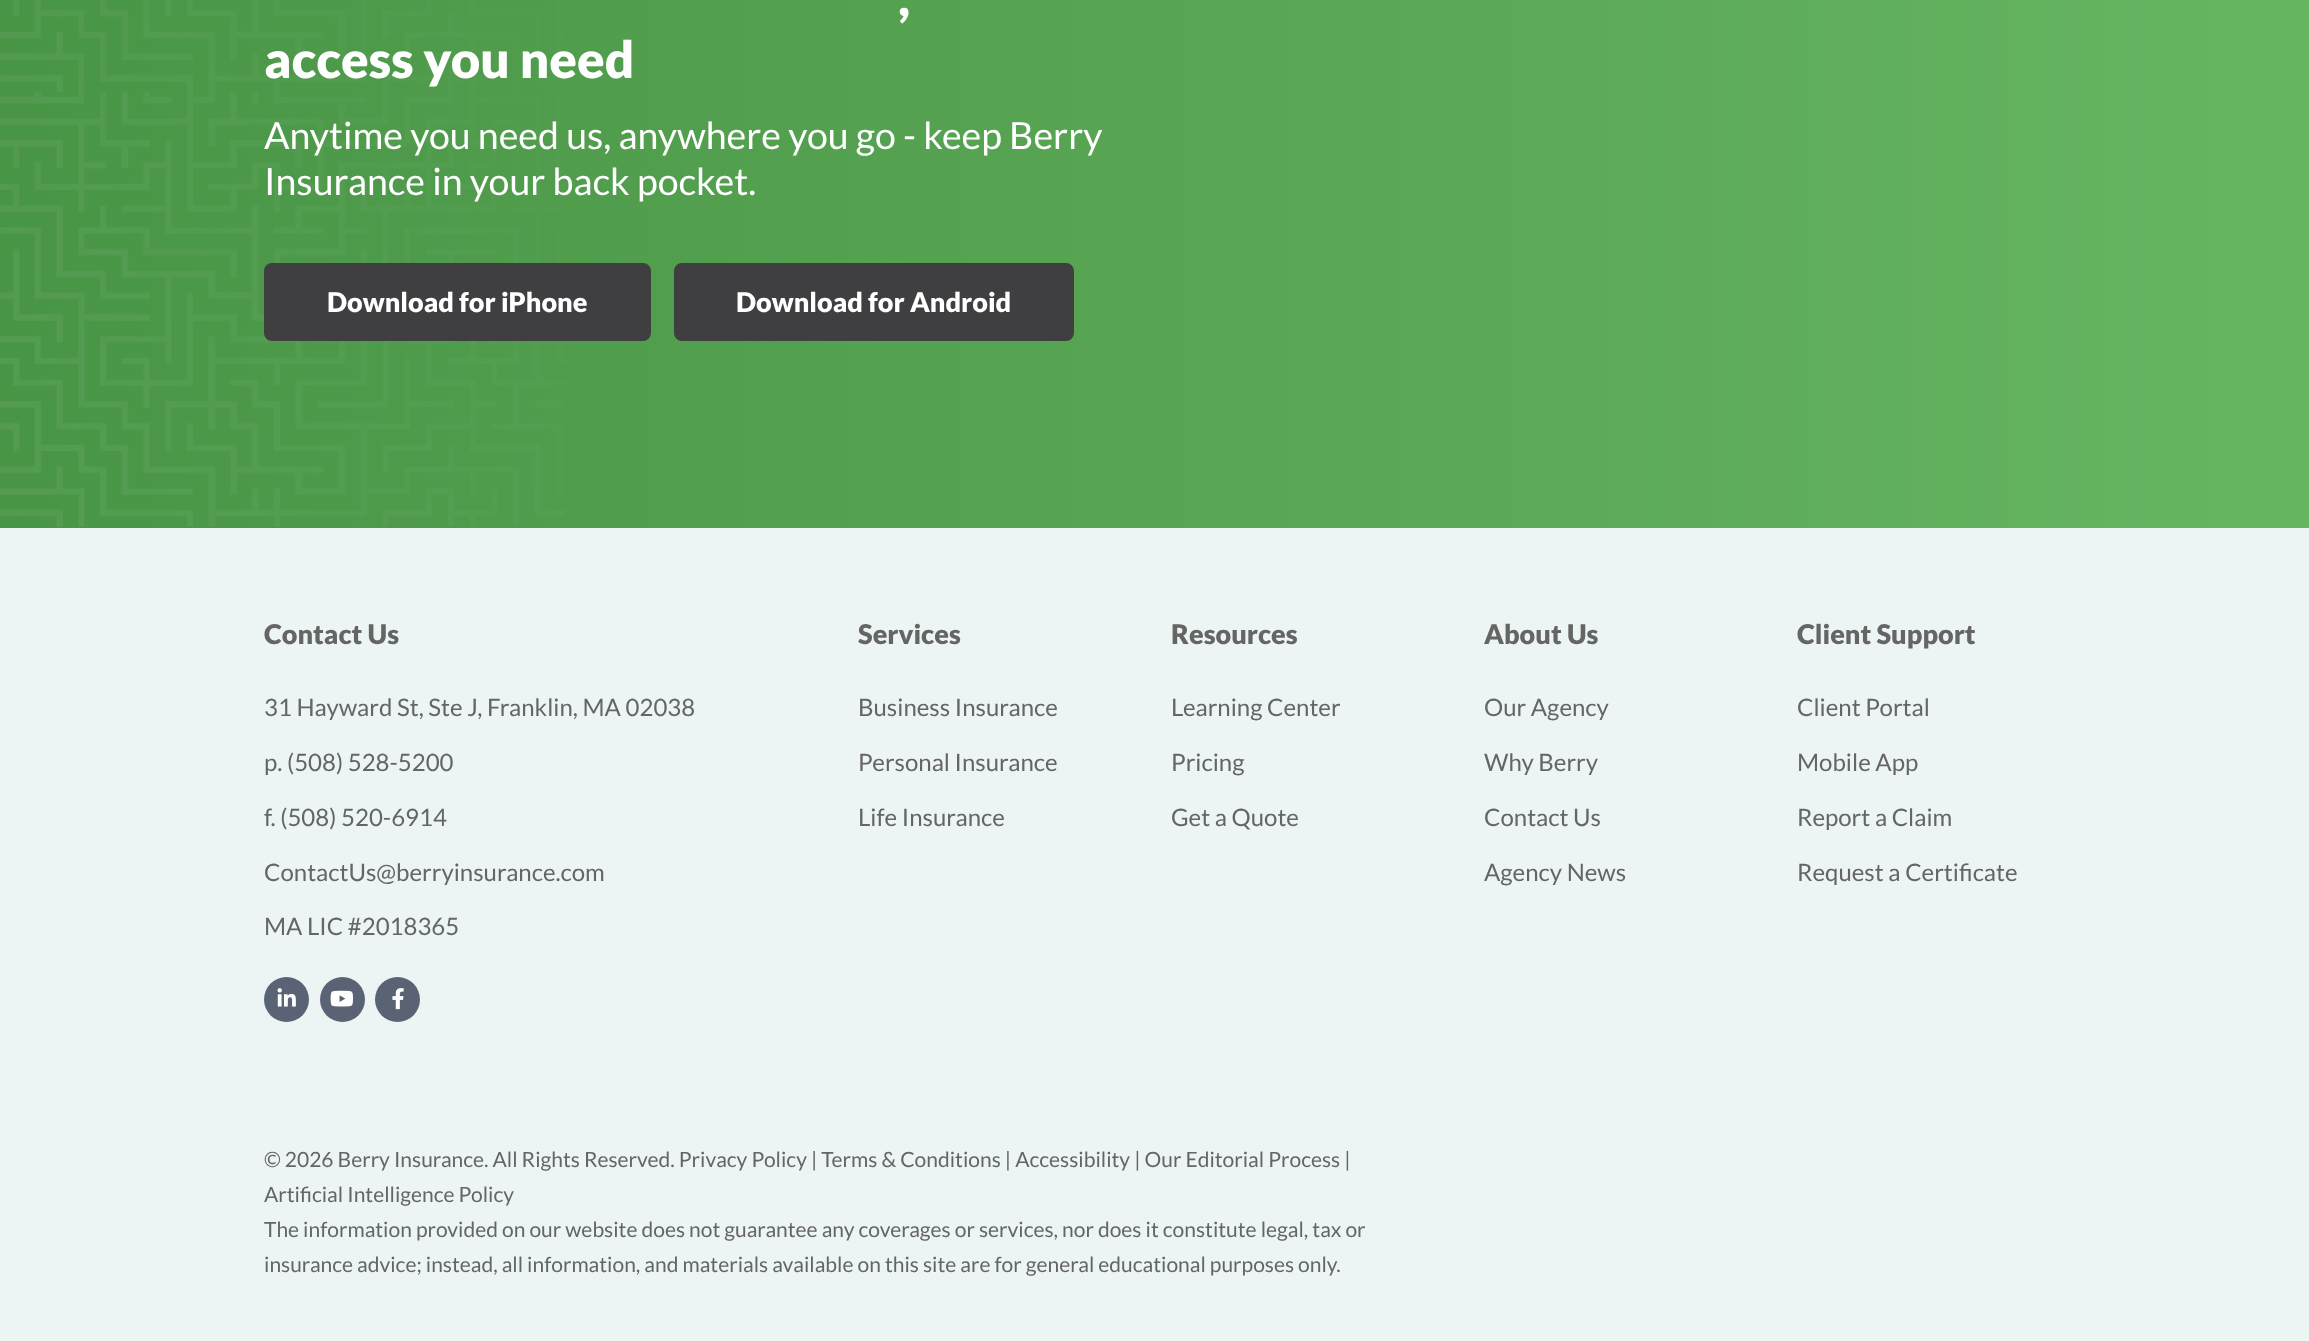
<!DOCTYPE html>
<meta charset="utf-8">
<style>body { margin: 0 } canvas { display: block }</style>
<canvas id="canvas" width="2309" height="1341"></canvas>
<img id="img1" src="images/1.png" hidden>
<img id="img2" src="images/2.png" hidden>
<img id="img3" src="images/3.png" hidden>
<img id="img4" src="images/4.png" hidden>
<script>
window.onload = function () {
    const canvas = document.getElementById('canvas');
    const context = canvas.getContext('2d');
    context.miterLimit = 4;
    context.fontKerning = 'normal';
    let gradient;

    context.fillStyle = 'rgb(237, 244, 244)';
    context.fillRect(0, 0, 2309, 1341);
    gradient = context.createLinearGradient(0, 92, 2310, 92);
    gradient.addColorStop(0, 'rgb(73, 149, 70)');
    gradient.addColorStop(1, 'rgb(102, 181, 97)');
    context.fillStyle = gradient;
    context.fillRect(0, 0, 2309, 528);
    context.drawImage(document.getElementById('img1'), 0, 0, 565, 527);
    context.fillStyle = 'rgb(63, 62, 64)';
    context.beginPath();
    context.roundRect(265.5, 264.5, 384, 75, 6.5);
    context.fill();
    context.strokeStyle = 'rgb(63, 62, 64)';
    context.lineWidth = 3;
    context.stroke();
    context.beginPath();
    context.roundRect(675.5, 264.5, 397, 75, 6.5);
    context.fill();
    context.stroke();
    context.fillStyle = 'rgb(89, 99, 116)';
    context.beginPath();
    context.arc(286.5, 999.5, 22.5, 0, 2 * Math.PI);
    context.fill();
    context.drawImage(document.getElementById('img2'), 277, 988, 19, 19);
    context.beginPath();
    context.arc(342.5, 999.5, 22.5, 0, 2 * Math.PI);
    context.fill();
    context.drawImage(document.getElementById('img3'), 330, 990, 23, 17);
    context.beginPath();
    context.arc(397.5, 999.5, 22.5, 0, 2 * Math.PI);
    context.fill();
    context.drawImage(document.getElementById('img4'), 392, 988, 12, 22);
    context.font = '900 51px Lato';
    context.fillStyle = 'rgb(255, 255, 255)';
    context.fillText(',', 898, 16);
    context.fillText('access you need', 264, 78);
    context.font = '37.5px Lato';
    context.fillText('Anytime you need us, anywhere you go - keep Berry', 264, 149);
    context.fillText('Insurance in your back pocket.', 264, 195);
    context.font = '900 27px Lato';
    context.fillText('Download for iPhone', 327, 312);
    context.fillText('Download for Android', 736, 312);
    context.fillStyle = 'rgb(101, 101, 102)';
    context.fillText('Contact Us', 264, 644);
    context.font = '24px Lato';
    context.fillText('31 Hayward St, Ste J, Franklin, MA 02038', 264, 716);
    context.fillText('p. (508) 528-5200', 264, 771);
    context.fillText('f. (508) 520-6914', 264, 826);
    context.fillText('ContactUs@berryinsurance.com', 264, 881);
    context.fillText('MA LIC #2018365', 264, 935);
    context.font = '900 27px Lato';
    context.fillText('Services', 858, 644);
    context.font = '24px Lato';
    context.fillText('Business Insurance', 858, 716);
    context.fillText('Personal Insurance', 858, 771);
    context.fillText('Life Insurance', 858, 826);
    context.font = '900 27px Lato';
    context.fillText('Resources', 1171, 644);
    context.font = '24px Lato';
    context.fillText('Learning Center', 1171, 716);
    context.fillText('Pricing', 1171, 771);
    context.fillText('Get a Quote', 1171, 826);
    context.font = '900 27px Lato';
    context.fillText('About Us', 1484, 644);
    context.font = '24px Lato';
    context.fillText('Our Agency', 1484, 716);
    context.fillText('Why Berry', 1484, 771);
    context.fillText('Contact Us', 1484, 826);
    context.fillText('Agency News', 1484, 881);
    context.font = '900 27px Lato';
    context.fillText('Client Support', 1797, 644);
    context.font = '24px Lato';
    context.fillText('Client Portal', 1797, 716);
    context.fillText('Mobile App', 1797, 771);
    context.fillText('Report a Claim', 1797, 826);
    context.fillText('Request a Certificate', 1797, 881);
    context.font = '21px Lato';
    context.fillText('© 2026 Berry Insurance. All Rights Reserved. Privacy Policy | Terms & Conditions | Accessibility | Our Editorial Process |', 264, 1167);
    context.fillText('Artificial Intelligence Policy', 264, 1202);
    context.fillText('The information provided on our website does not guarantee any coverages or services, nor does it constitute legal, tax or', 264, 1237);
    context.fillText('insurance advice; instead, all information, and materials available on this site are for general educational purposes only.', 264, 1272);
};
</script>
